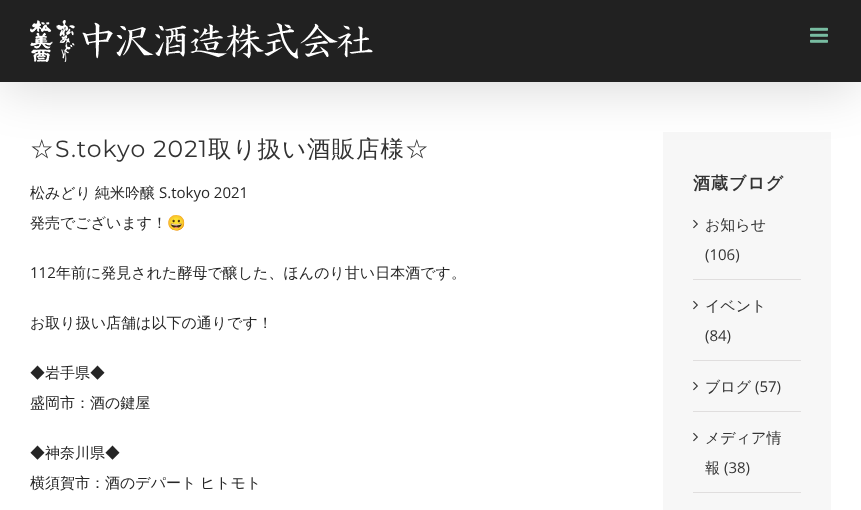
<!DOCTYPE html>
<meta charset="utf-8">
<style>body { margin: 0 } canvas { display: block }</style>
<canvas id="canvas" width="861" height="510"></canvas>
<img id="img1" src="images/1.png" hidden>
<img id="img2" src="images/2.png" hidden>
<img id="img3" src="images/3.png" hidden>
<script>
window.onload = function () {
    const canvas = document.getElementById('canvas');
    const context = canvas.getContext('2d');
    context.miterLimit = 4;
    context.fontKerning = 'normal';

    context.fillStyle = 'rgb(255, 255, 255)';
    context.fillRect(0, 0, 861, 510);
    context.fillStyle = 'rgb(247, 247, 247)';
    context.fillRect(663, 132, 168, 378);
    context.fillStyle = 'rgba(0, 0, 0, 0.14)';
    context.filter = 'blur(25px)';
    context.beginPath();
    context.rect(2, 12, 857, 78);
    context.fill();
    context.filter = 'none';
    context.fillStyle = 'rgb(33, 33, 33)';
    context.fillRect(0, 0, 861, 82);
    context.drawImage(document.getElementById('img1'), 30, 20, 343, 42);
    context.drawImage(document.getElementById('img2'), 810, 27, 18, 16);
    context.fillStyle = 'rgb(224, 222, 222)';
    context.fillRect(693, 279, 108, 1);
    context.drawImage(document.getElementById('img3'), 693, 219, 5, 10);
    context.fillRect(693, 360, 108, 1);
    context.drawImage(document.getElementById('img3'), 693, 300, 5, 10);
    context.fillRect(693, 411, 108, 1);
    context.drawImage(document.getElementById('img3'), 693, 381, 5, 10);
    context.fillRect(693, 492, 108, 1);
    context.drawImage(document.getElementById('img3'), 693, 432, 5, 10);
    context.letterSpacing = '1px';
    context.font = '500 23.5px WenQuanYi Zen Hei';
    context.fillStyle = 'rgb(51, 51, 51)';
    context.fillText('☆', 30, 157);
    context.font = '100 23.5px Montserrat';
    context.fillText('S.tokyo 2021', 55, 157);
    context.font = '500 23.5px WenQuanYi Zen Hei';
    context.fillText('取り扱い酒販店様☆', 208, 157);
    context.letterSpacing = '0px';
    context.font = '500 15px WenQuanYi Zen Hei';
    context.fillStyle = 'rgb(38, 38, 38)';
    context.fillText('松みどり', 30, 198);
    context.fillText('純米吟醸', 95, 198);
    context.font = '15px Open Sans';
    context.fillText('S.tokyo 2021', 159, 198);
    context.font = '500 15px WenQuanYi Zen Hei';
    context.fillText('発売でございます！', 30, 228);
    context.font = '15px Noto Color Emoji';
    context.fillText('😀', 167, 228);
    context.font = '15px Open Sans';
    context.fillText('112', 30, 278);
    context.font = '500 15px WenQuanYi Zen Hei';
    context.fillText('年前に発見された酵母で醸した、ほんのり甘い日本酒です。', 56, 278);
    context.fillText('お取り扱い店舗は以下の通りです！', 30, 328);
    context.fillText('◆岩手県◆', 30, 378);
    context.fillText('盛岡市：酒の鍵屋', 30, 408);
    context.fillText('◆神奈川県◆', 30, 458);
    context.wordSpacing = '-1px';
    context.fillText('横須賀市：酒のデパート ヒトモト', 30, 488);
    context.letterSpacing = '1px';
    context.wordSpacing = '0px';
    context.font = 'bold 17px WenQuanYi Zen Hei';
    context.fillStyle = 'rgb(51, 51, 51)';
    context.fillText('酒蔵ブログ', 693, 189);
    context.letterSpacing = '0px';
    context.font = '500 15px WenQuanYi Zen Hei';
    context.fillText('お知らせ', 705, 230);
    context.font = '15px Open Sans';
    context.fillText('(106)', 705, 260);
    context.font = '500 15px WenQuanYi Zen Hei';
    context.fillText('イベント', 705, 311);
    context.font = '15px Open Sans';
    context.fillText('(84)', 705, 341);
    context.font = '500 15px WenQuanYi Zen Hei';
    context.fillText('ブログ', 705, 392);
    context.font = '15px Open Sans';
    context.fillText('(57)', 755, 392);
    context.font = '500 15px WenQuanYi Zen Hei';
    context.fillText('メディア情', 705, 443);
    context.fillText('報', 705, 473);
    context.font = '15px Open Sans';
    context.fillText('(38)', 724, 473);
};
</script>
